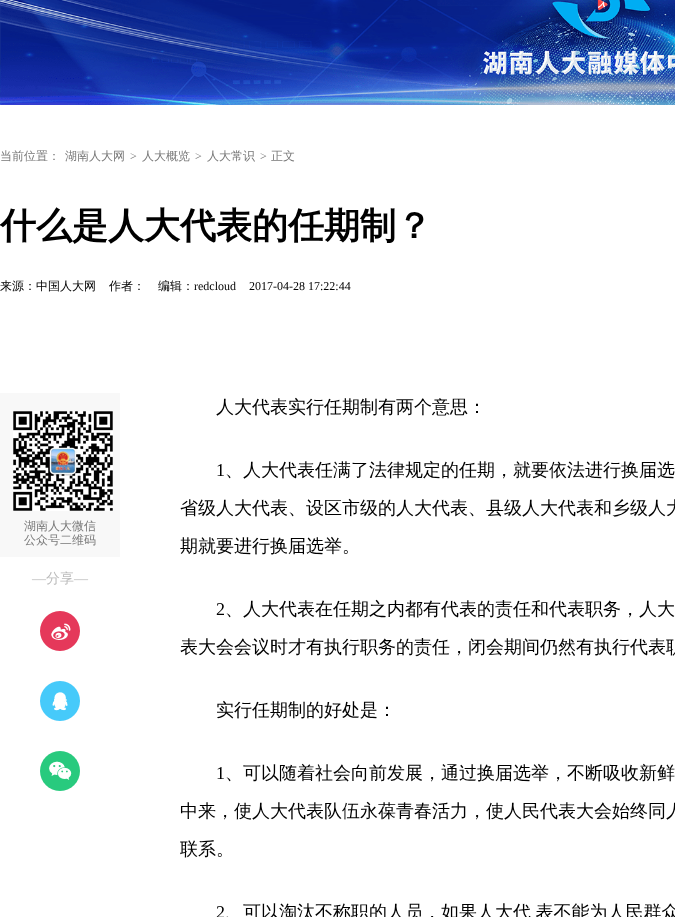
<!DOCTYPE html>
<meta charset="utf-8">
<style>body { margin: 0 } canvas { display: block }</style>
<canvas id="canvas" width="675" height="917"></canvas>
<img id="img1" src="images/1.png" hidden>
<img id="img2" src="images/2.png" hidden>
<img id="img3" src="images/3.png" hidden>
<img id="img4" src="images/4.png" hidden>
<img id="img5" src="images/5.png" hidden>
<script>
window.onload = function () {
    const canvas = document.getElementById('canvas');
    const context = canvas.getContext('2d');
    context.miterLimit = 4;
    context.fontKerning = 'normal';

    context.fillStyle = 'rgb(255, 255, 255)';
    context.fillRect(0, 0, 675, 917);
    context.drawImage(document.getElementById('img1'), 0, 0, 675, 105);
    context.fillStyle = 'rgb(248, 248, 248)';
    context.fillRect(0, 393, 120, 164);
    context.drawImage(document.getElementById('img2'), 13, 411, 100, 100);
    context.drawImage(document.getElementById('img3'), 40, 611, 40, 40);
    context.drawImage(document.getElementById('img4'), 40, 681, 40, 40);
    context.drawImage(document.getElementById('img5'), 40, 751, 40, 40);
    context.font = '500 12px WenQuanYi Zen Hei';
    context.fillStyle = 'rgb(120, 120, 120)';
    context.fillText('当前位置：', 0, 160);
    context.fillText('湖南人大网', 65, 160);
    context.font = '12px Liberation Serif';
    context.fillText('>', 130, 160);
    context.font = '500 12px WenQuanYi Zen Hei';
    context.fillText('人大概览', 142, 160);
    context.font = '12px Liberation Serif';
    context.fillText('>', 195, 160);
    context.font = '500 12px WenQuanYi Zen Hei';
    context.fillText('人大常识', 207, 160);
    context.font = '12px Liberation Serif';
    context.fillText('>', 260, 160);
    context.font = '500 12px WenQuanYi Zen Hei';
    context.fillText('正文', 271, 160);
    context.font = 'bold 36px WenQuanYi Zen Hei';
    context.fillStyle = 'rgb(0, 0, 0)';
    context.fillText('什么是人大代表的任期制？', 0, 238);
    context.font = '500 12px WenQuanYi Zen Hei';
    context.fillText('来源：中国人大网', 0, 290);
    context.fillText('作者：', 109, 290);
    context.fillText('编辑：', 158, 290);
    context.font = '12px Liberation Serif';
    context.fillText('redcloud', 194, 290);
    context.fillText('2017-04-28 17:22:44', 249, 290);
    context.font = '500 12px WenQuanYi Zen Hei';
    context.fillStyle = 'rgb(120, 120, 120)';
    context.fillText('湖南人大微信', 24, 530);
    context.fillText('公众号二维码', 24, 544);
    context.font = '14px Liberation Serif';
    context.fillStyle = 'rgb(187, 187, 187)';
    context.fillText('—', 32, 583);
    context.font = '500 14px WenQuanYi Zen Hei';
    context.fillText('分享', 46, 583);
    context.font = '14px Liberation Serif';
    context.fillText('—', 74, 583);
    context.font = '500 18px WenQuanYi Zen Hei';
    context.fillStyle = 'rgb(0, 0, 0)';
    context.fillText('人大代表实行任期制有两个意思：', 216, 413);
    context.font = '18px Liberation Serif';
    context.fillText('1', 216, 476);
    context.font = '500 18px WenQuanYi Zen Hei';
    context.fillText('、人大代表任满了法律规定的任期，就要依法进行换届选', 225, 476);
    context.fillText('省级人大代表、设区市级的人大代表、县级人大代表和乡级人大', 180, 514);
    context.fillText('期就要进行换届选举。', 180, 552);
    context.font = '18px Liberation Serif';
    context.fillText('2', 216, 615);
    context.font = '500 18px WenQuanYi Zen Hei';
    context.fillText('、人大代表在任期之内都有代表的责任和代表职务，人大', 225, 615);
    context.fillText('表大会会议时才有执行职务的责任，闭会期间仍然有执行代表职', 180, 653);
    context.fillText('实行任期制的好处是：', 216, 716);
    context.font = '18px Liberation Serif';
    context.fillText('1', 216, 779);
    context.font = '500 18px WenQuanYi Zen Hei';
    context.fillText('、可以随着社会向前发展，通过换届选举，不断吸收新鲜', 225, 779);
    context.fillText('中来，使人大代表队伍永葆青春活力，使人民代表大会始终同人', 180, 817);
    context.fillText('联系。', 180, 855);
    context.font = '18px Liberation Serif';
    context.fillText('2', 216, 918);
    context.wordSpacing = '-1px';
    context.font = '500 18px WenQuanYi Zen Hei';
    context.fillText('、可以淘汰不称职的人员，如果人大代 表不能为人民群众', 225, 918);
};
</script>
